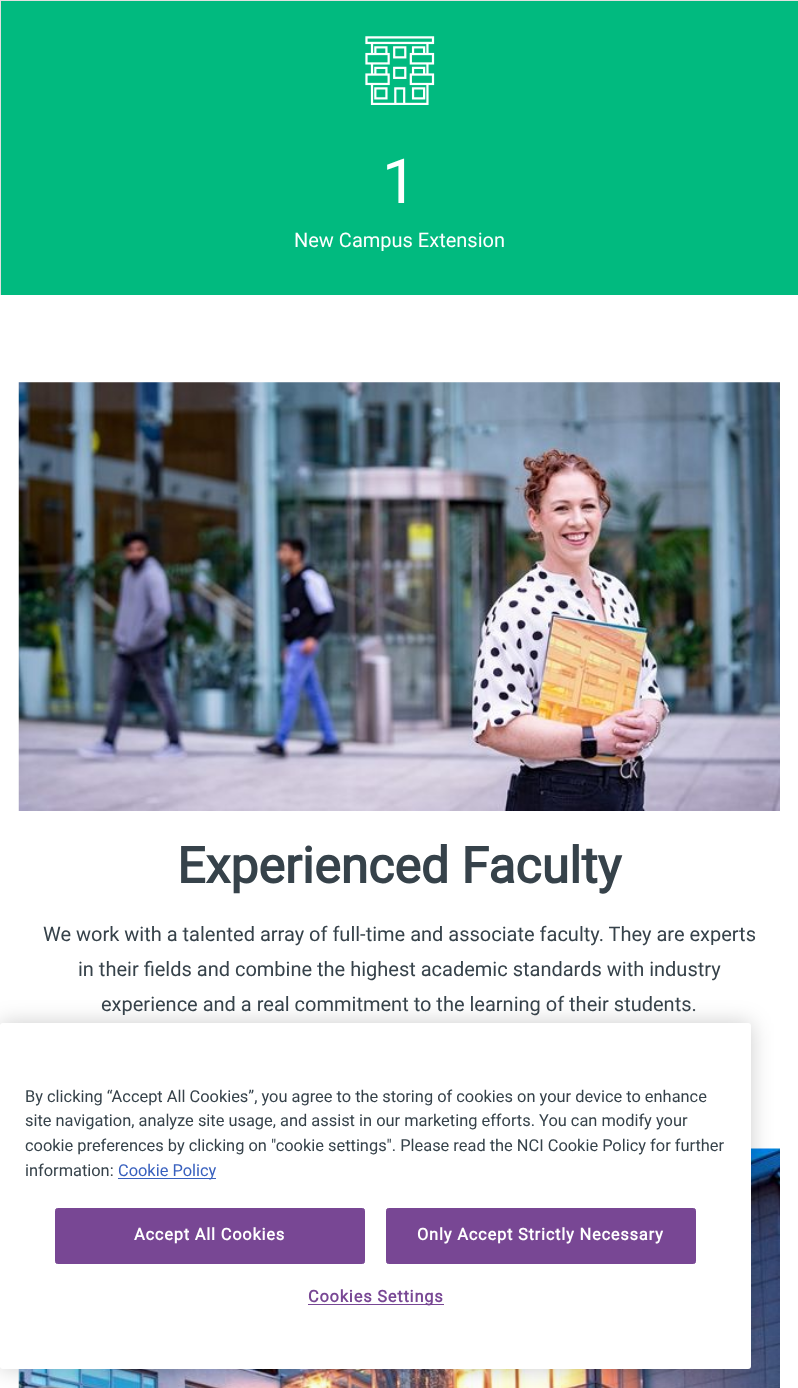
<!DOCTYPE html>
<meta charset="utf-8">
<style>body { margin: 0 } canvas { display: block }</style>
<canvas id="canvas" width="798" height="1388"></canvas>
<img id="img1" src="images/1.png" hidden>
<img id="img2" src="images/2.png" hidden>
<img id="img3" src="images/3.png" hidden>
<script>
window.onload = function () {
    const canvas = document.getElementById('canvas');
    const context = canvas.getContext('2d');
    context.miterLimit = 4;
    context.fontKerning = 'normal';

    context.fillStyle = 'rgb(255, 255, 255)';
    context.fillRect(0, 0, 798, 1388);
    context.fillStyle = 'rgb(1, 186, 127)';
    context.fillRect(1, 1, 797, 294);
    context.fillStyle = 'rgb(225, 225, 225)';
    context.fillRect(0, 0, 798, 1);
    context.fillRect(0, 0, 1, 295);
    context.drawImage(document.getElementById('img1'), 365, 36, 70, 69);
    context.drawImage(document.getElementById('img2'), 18, 382, 762, 429);
    context.drawImage(document.getElementById('img3'), 18, 1148, 762, 240);
    context.fillStyle = 'rgba(0, 0, 0, 0.2)';
    context.filter = 'blur(11px)';
    context.beginPath();
    context.roundRect(0, 1023, 751, 346, 3);
    context.fill();
    context.filter = 'none';
    context.fillStyle = 'rgb(255, 255, 255)';
    context.beginPath();
    context.roundRect(0, 1023, 751, 346, 3);
    context.fill();
    context.fillStyle = 'rgb(56, 96, 190)';
    context.fillRect(118, 1178, 98, 1);
    context.fillStyle = 'rgb(120, 71, 148)';
    context.beginPath();
    context.roundRect(55.5, 1208.5, 309, 55, 2);
    context.fill();
    context.strokeStyle = 'rgb(120, 71, 148)';
    context.stroke();
    context.beginPath();
    context.roundRect(386.5, 1208.5, 309, 55, 2);
    context.fill();
    context.stroke();
    context.fillRect(308, 1304, 136, 1);
    context.font = '62px Roboto';
    context.fillStyle = 'rgb(255, 255, 255)';
    context.fillText('1', 382, 203);
    context.font = '20px Roboto';
    context.fillText('New Campus Extension', 294, 247);
    context.font = 'bold 50px Roboto';
    context.fillStyle = 'rgb(54, 66, 74)';
    context.fillText('Experienced Faculty', 177, 883);
    context.font = '20px Roboto';
    context.fillText('We work with a talented array of full-time and associate faculty. They are experts', 43, 941);
    context.fillText('in their fields and combine the highest academic standards with industry', 78, 976);
    context.fillText('experience and a real commitment to the learning of their students.', 101, 1011);
    context.font = '16.4px Roboto';
    context.fillText('By clicking “Accept All Cookies”, you agree to the storing of cookies on your device to enhance', 25, 1102);
    context.fillText('site navigation, analyze site usage, and assist in our marketing efforts. You can modify your', 25, 1126);
    context.fillText('cookie preferences by clicking on "cookie settings". Please read the NCI Cookie Policy for further', 25, 1151);
    context.fillText('information:', 25, 1176);
    context.fillStyle = 'rgb(56, 96, 190)';
    context.fillText('Cookie Policy', 118, 1176);
    context.letterSpacing = '0.8px';
    context.font = 'bold 16.4px Roboto';
    context.fillStyle = 'rgb(255, 255, 255)';
    context.fillText('Accept All Cookies', 134, 1240);
    context.fillText('Only Accept Strictly Necessary', 417, 1240);
    context.fillStyle = 'rgb(120, 71, 148)';
    context.fillText('Cookies Settings', 308, 1302);
};
</script>
